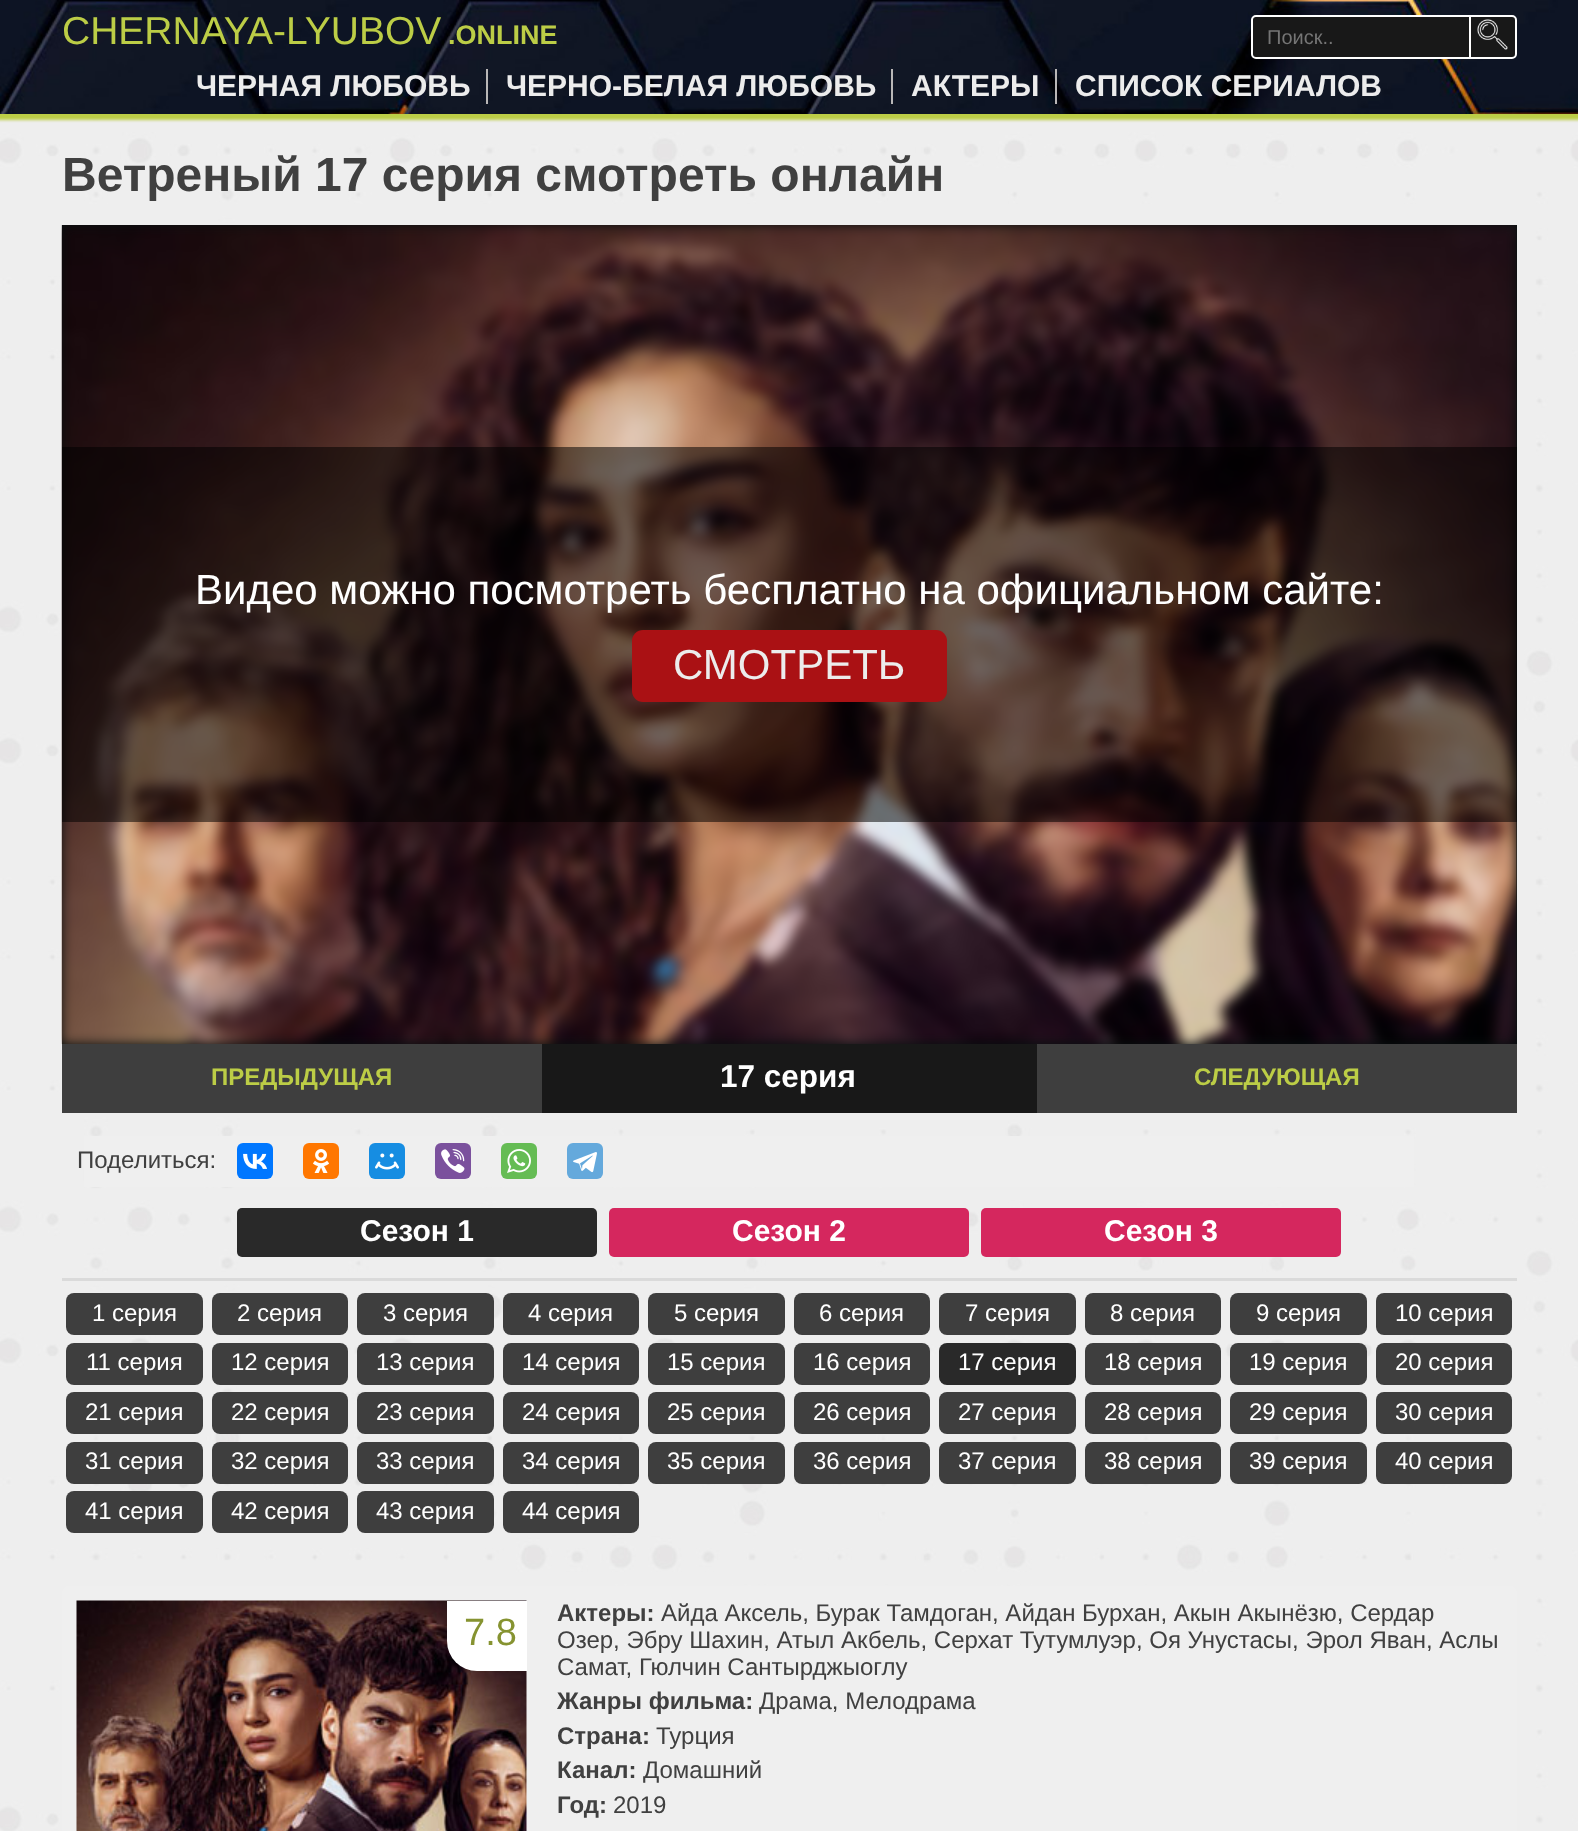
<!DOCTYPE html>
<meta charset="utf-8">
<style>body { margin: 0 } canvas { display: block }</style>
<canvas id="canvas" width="1578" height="1831"></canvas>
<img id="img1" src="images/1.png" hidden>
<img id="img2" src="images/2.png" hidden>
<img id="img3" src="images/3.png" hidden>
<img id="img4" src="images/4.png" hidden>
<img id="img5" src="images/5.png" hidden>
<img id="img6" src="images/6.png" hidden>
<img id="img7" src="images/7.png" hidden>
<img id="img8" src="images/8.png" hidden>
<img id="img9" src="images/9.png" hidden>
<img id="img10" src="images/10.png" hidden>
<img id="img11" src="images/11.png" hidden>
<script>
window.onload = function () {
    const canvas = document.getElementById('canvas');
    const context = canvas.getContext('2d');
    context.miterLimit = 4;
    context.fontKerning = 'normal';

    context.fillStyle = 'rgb(255, 255, 255)';
    context.fillRect(0, 0, 1578, 1831);
    context.drawImage(document.getElementById('img1'), 0, 117, 1578, 1714);
    context.fillStyle = 'rgb(188, 205, 70)';
    context.filter = 'blur(1.5px)';
    context.beginPath();
    context.rect(-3, -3, 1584, 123);
    context.fill();
    context.filter = 'none';
    context.drawImage(document.getElementById('img2'), 0, 0, 1578, 114);
    context.fillRect(0, 116, 1578, 1);
    context.fillStyle = 'rgb(185, 183, 183)';
    context.fillRect(486, 69, 2, 35);
    context.fillRect(891, 69, 2, 35);
    context.fillRect(1055, 69, 2, 35);
    context.fillStyle = 'rgb(24, 24, 24)';
    context.beginPath();
    context.roundRect(1252, 16, 264, 42, 4);
    context.fill();
    context.strokeStyle = 'rgb(255, 255, 255)';
    context.lineWidth = 2;
    context.stroke();
    context.beginPath();
    context.roundRect(1253, 17, 210, 40, 5);
    context.fill();
    context.fillStyle = 'rgb(255, 255, 255)';
    context.fillRect(1469, 17, 2, 40);
    context.drawImage(document.getElementById('img3'), 1477, 19, 31, 31);
    context.fillStyle = 'rgb(8, 16, 16)';
    context.fillRect(62, 225, 1455, 819);
    context.drawImage(document.getElementById('img4'), 61, 225, 1456, 819);
    context.fillStyle = 'rgba(0, 0, 0, 0.53)';
    context.fillRect(62, 447, 1455, 375);
    context.fillStyle = 'rgb(170, 17, 20)';
    context.beginPath();
    context.roundRect(632, 630, 315, 72, 11);
    context.fill();
    context.fillStyle = 'rgb(24, 24, 24)';
    context.fillRect(542, 1044, 495, 69);
    context.fillStyle = 'rgb(62, 62, 62)';
    context.fillRect(62, 1044, 480, 69);
    context.fillRect(1037, 1044, 480, 69);
    context.fillStyle = 'rgb(239, 239, 239)';
    context.fillRect(84, 1136, 1330, 51);
    context.fillStyle = 'rgb(0, 119, 255)';
    context.beginPath();
    context.roundRect(237, 1143, 36, 36, 6);
    context.fill();
    context.drawImage(document.getElementById('img5'), 243, 1153, 24, 16);
    context.fillStyle = 'rgb(255, 119, 0)';
    context.beginPath();
    context.roundRect(303, 1143, 36, 36, 6);
    context.fill();
    context.drawImage(document.getElementById('img6'), 313, 1149, 17, 24);
    context.fillStyle = 'rgb(22, 141, 226)';
    context.beginPath();
    context.roundRect(369, 1143, 36, 36, 6);
    context.fill();
    context.drawImage(document.getElementById('img7'), 375, 1153, 24, 17);
    context.fillStyle = 'rgb(123, 81, 157)';
    context.beginPath();
    context.roundRect(435, 1143, 36, 36, 6);
    context.fill();
    context.drawImage(document.getElementById('img8'), 441, 1149, 24, 24);
    context.fillStyle = 'rgb(101, 188, 84)';
    context.beginPath();
    context.roundRect(501, 1143, 36, 36, 6);
    context.fill();
    context.drawImage(document.getElementById('img9'), 507, 1149, 24, 24);
    context.fillStyle = 'rgb(100, 169, 220)';
    context.beginPath();
    context.roundRect(567, 1143, 36, 36, 6);
    context.fill();
    context.drawImage(document.getElementById('img10'), 573, 1152, 24, 21);
    context.fillStyle = 'rgb(41, 41, 41)';
    context.beginPath();
    context.roundRect(237, 1208, 360, 49, 5);
    context.fill();
    context.fillStyle = 'rgb(213, 39, 94)';
    context.beginPath();
    context.roundRect(609, 1208, 360, 49, 5);
    context.fill();
    context.beginPath();
    context.roundRect(981, 1208, 360, 49, 5);
    context.fill();
    context.fillStyle = 'rgb(218, 218, 218)';
    context.fillRect(62, 1278, 1455, 3);
    context.fillStyle = 'rgb(62, 62, 62)';
    context.beginPath();
    context.roundRect(66, 1293, 137, 42, 8);
    context.fill();
    context.beginPath();
    context.roundRect(212, 1293, 136, 42, 8);
    context.fill();
    context.beginPath();
    context.roundRect(357, 1293, 137, 42, 8);
    context.fill();
    context.beginPath();
    context.roundRect(503, 1293, 136, 42, 8);
    context.fill();
    context.beginPath();
    context.roundRect(648, 1293, 137, 42, 8);
    context.fill();
    context.beginPath();
    context.roundRect(794, 1293, 136, 42, 8);
    context.fill();
    context.beginPath();
    context.roundRect(939, 1293, 137, 42, 8);
    context.fill();
    context.beginPath();
    context.roundRect(1085, 1293, 136, 42, 8);
    context.fill();
    context.beginPath();
    context.roundRect(1230, 1293, 137, 42, 8);
    context.fill();
    context.beginPath();
    context.roundRect(1376, 1293, 136, 42, 8);
    context.fill();
    context.beginPath();
    context.roundRect(66, 1343, 137, 42, 8);
    context.fill();
    context.beginPath();
    context.roundRect(212, 1343, 136, 42, 8);
    context.fill();
    context.beginPath();
    context.roundRect(357, 1343, 137, 42, 8);
    context.fill();
    context.beginPath();
    context.roundRect(503, 1343, 136, 42, 8);
    context.fill();
    context.beginPath();
    context.roundRect(648, 1343, 137, 42, 8);
    context.fill();
    context.beginPath();
    context.roundRect(794, 1343, 136, 42, 8);
    context.fill();
    context.fillStyle = 'rgb(41, 41, 41)';
    context.beginPath();
    context.roundRect(939, 1343, 137, 42, 8);
    context.fill();
    context.fillStyle = 'rgb(62, 62, 62)';
    context.beginPath();
    context.roundRect(1085, 1343, 136, 42, 8);
    context.fill();
    context.beginPath();
    context.roundRect(1230, 1343, 137, 42, 8);
    context.fill();
    context.beginPath();
    context.roundRect(1376, 1343, 136, 42, 8);
    context.fill();
    context.beginPath();
    context.roundRect(66, 1392, 137, 42, 8);
    context.fill();
    context.beginPath();
    context.roundRect(212, 1392, 136, 42, 8);
    context.fill();
    context.beginPath();
    context.roundRect(357, 1392, 137, 42, 8);
    context.fill();
    context.beginPath();
    context.roundRect(503, 1392, 136, 42, 8);
    context.fill();
    context.beginPath();
    context.roundRect(648, 1392, 137, 42, 8);
    context.fill();
    context.beginPath();
    context.roundRect(794, 1392, 136, 42, 8);
    context.fill();
    context.beginPath();
    context.roundRect(939, 1392, 137, 42, 8);
    context.fill();
    context.beginPath();
    context.roundRect(1085, 1392, 136, 42, 8);
    context.fill();
    context.beginPath();
    context.roundRect(1230, 1392, 137, 42, 8);
    context.fill();
    context.beginPath();
    context.roundRect(1376, 1392, 136, 42, 8);
    context.fill();
    context.beginPath();
    context.roundRect(66, 1442, 137, 42, 8);
    context.fill();
    context.beginPath();
    context.roundRect(212, 1442, 136, 42, 8);
    context.fill();
    context.beginPath();
    context.roundRect(357, 1442, 137, 42, 8);
    context.fill();
    context.beginPath();
    context.roundRect(503, 1442, 136, 42, 8);
    context.fill();
    context.beginPath();
    context.roundRect(648, 1442, 137, 42, 8);
    context.fill();
    context.beginPath();
    context.roundRect(794, 1442, 136, 42, 8);
    context.fill();
    context.beginPath();
    context.roundRect(939, 1442, 137, 42, 8);
    context.fill();
    context.beginPath();
    context.roundRect(1085, 1442, 136, 42, 8);
    context.fill();
    context.beginPath();
    context.roundRect(1230, 1442, 137, 42, 8);
    context.fill();
    context.beginPath();
    context.roundRect(1376, 1442, 136, 42, 8);
    context.fill();
    context.beginPath();
    context.roundRect(66, 1491, 137, 42, 8);
    context.fill();
    context.beginPath();
    context.roundRect(212, 1491, 136, 42, 8);
    context.fill();
    context.beginPath();
    context.roundRect(357, 1491, 137, 42, 8);
    context.fill();
    context.beginPath();
    context.roundRect(503, 1491, 136, 42, 8);
    context.fill();
    context.fillStyle = 'rgb(239, 239, 239)';
    context.beginPath();
    context.roundRect(62, 1586, 1455, 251, 6);
    context.fill();
    context.drawImage(document.getElementById('img11'), 76, 1600, 451, 231);
    context.fillStyle = 'rgb(255, 255, 255)';
    context.beginPath();
    context.roundRect(447, 1601, 80, 70, [0, 0, 0, 30]);
    context.fill();
    context.font = '39px Liberation Sans';
    context.fillStyle = 'rgb(188, 205, 70)';
    context.fillText('CHERNAYA-LYUBOV', 62, 44);
    context.font = 'bold 27px Liberation Sans';
    context.fillText('.ONLINE', 448, 44);
    context.font = 'bold 30px Liberation Sans';
    context.fillStyle = 'rgb(236, 236, 236)';
    context.fillText('ЧЕРНАЯ ЛЮБОВЬ', 196, 96);
    context.fillText('ЧЕРНО-БЕЛАЯ ЛЮБОВЬ', 506, 96);
    context.fillText('АКТЕРЫ', 911, 96);
    context.fillText('СПИСОК СЕРИАЛОВ', 1075, 96);
    context.font = '20px Liberation Sans';
    context.fillStyle = 'rgb(117, 117, 117)';
    context.fillText('Поиск..', 1267, 44);
    context.font = 'bold 48px Liberation Sans';
    context.fillStyle = 'rgb(64, 64, 64)';
    context.fillText('Ветреный 17 серия смотреть онлайн', 62, 191);
    context.font = '42px Liberation Sans';
    context.fillStyle = 'rgb(255, 255, 255)';
    context.fillText('Видео можно посмотреть бесплатно на официальном сайте:', 195, 604);
    context.fillStyle = 'rgb(236, 236, 236)';
    context.fillText('СМОТРЕТЬ', 673, 679);
    context.font = 'bold 24px Liberation Sans';
    context.fillStyle = 'rgb(188, 205, 70)';
    context.fillText('ПРЕДЫДУЩАЯ', 211, 1085);
    context.font = 'bold 31.5px Liberation Sans';
    context.fillStyle = 'rgb(255, 255, 255)';
    context.fillText('17 серия', 720, 1087);
    context.font = 'bold 24px Liberation Sans';
    context.fillStyle = 'rgb(188, 205, 70)';
    context.fillText('СЛЕДУЮЩАЯ', 1194, 1085);
    context.font = '24px Liberation Sans';
    context.fillStyle = 'rgb(64, 64, 64)';
    context.fillText('Поделиться:', 77, 1168);
    context.font = 'bold 30px Liberation Sans';
    context.fillStyle = 'rgb(255, 255, 255)';
    context.fillText('Сезон 1', 360, 1241);
    context.fillText('Сезон 2', 732, 1241);
    context.fillText('Сезон 3', 1104, 1241);
    context.font = '24px Liberation Sans';
    context.fillText('1 серия', 92, 1321);
    context.fillText('2 серия', 237, 1321);
    context.fillText('3 серия', 383, 1321);
    context.fillText('4 серия', 528, 1321);
    context.fillText('5 серия', 674, 1321);
    context.fillText('6 серия', 819, 1321);
    context.fillText('7 серия', 965, 1321);
    context.fillText('8 серия', 1110, 1321);
    context.fillText('9 серия', 1256, 1321);
    context.fillText('10 серия', 1395, 1321);
    context.fillText('11 серия', 86, 1370);
    context.fillText('12 серия', 231, 1370);
    context.fillText('13 серия', 376, 1370);
    context.fillText('14 серия', 522, 1370);
    context.fillText('15 серия', 667, 1370);
    context.fillText('16 серия', 813, 1370);
    context.fillText('17 серия', 958, 1370);
    context.fillText('18 серия', 1104, 1370);
    context.fillText('19 серия', 1249, 1370);
    context.fillText('20 серия', 1395, 1370);
    context.fillText('21 серия', 85, 1420);
    context.fillText('22 серия', 231, 1420);
    context.fillText('23 серия', 376, 1420);
    context.fillText('24 серия', 522, 1420);
    context.fillText('25 серия', 667, 1420);
    context.fillText('26 серия', 813, 1420);
    context.fillText('27 серия', 958, 1420);
    context.fillText('28 серия', 1104, 1420);
    context.fillText('29 серия', 1249, 1420);
    context.fillText('30 серия', 1395, 1420);
    context.fillText('31 серия', 85, 1469);
    context.fillText('32 серия', 231, 1469);
    context.fillText('33 серия', 376, 1469);
    context.fillText('34 серия', 522, 1469);
    context.fillText('35 серия', 667, 1469);
    context.fillText('36 серия', 813, 1469);
    context.fillText('37 серия', 958, 1469);
    context.fillText('38 серия', 1104, 1469);
    context.fillText('39 серия', 1249, 1469);
    context.fillText('40 серия', 1395, 1469);
    context.fillText('41 серия', 85, 1519);
    context.fillText('42 серия', 231, 1519);
    context.fillText('43 серия', 376, 1519);
    context.fillText('44 серия', 522, 1519);
    context.font = '38px Liberation Sans';
    context.fillStyle = 'rgb(134, 147, 49)';
    context.fillText('7.8', 464, 1645);
    context.font = 'bold 24px Liberation Sans';
    context.fillStyle = 'rgb(64, 64, 64)';
    context.fillText('Актеры:', 557, 1621);
    context.font = '24px Liberation Sans';
    context.fillText('Айда Аксель, Бурак Тамдоган, Айдан Бурхан, Акын Акынёзю, Сердар', 661, 1621);
    context.fillText('Озер, Эбру Шахин, Атыл Акбель, Серхат Тутумлуэр, Оя Унустасы, Эрол Яван, Аслы', 557, 1648);
    context.fillText('Самат, Гюлчин Сантырджыоглу', 557, 1675);
    context.font = 'bold 24px Liberation Sans';
    context.fillText('Жанры фильма:', 557, 1709);
    context.font = '24px Liberation Sans';
    context.fillText('Драма, Мелодрама', 759, 1709);
    context.font = 'bold 24px Liberation Sans';
    context.fillText('Страна:', 557, 1744);
    context.font = '24px Liberation Sans';
    context.fillText('Турция', 656, 1744);
    context.font = 'bold 24px Liberation Sans';
    context.fillText('Канал:', 557, 1778);
    context.font = '24px Liberation Sans';
    context.fillText('Домашний', 643, 1778);
    context.font = 'bold 24px Liberation Sans';
    context.fillText('Год:', 557, 1813);
    context.font = '24px Liberation Sans';
    context.fillText('2019', 613, 1813);
};
</script>
